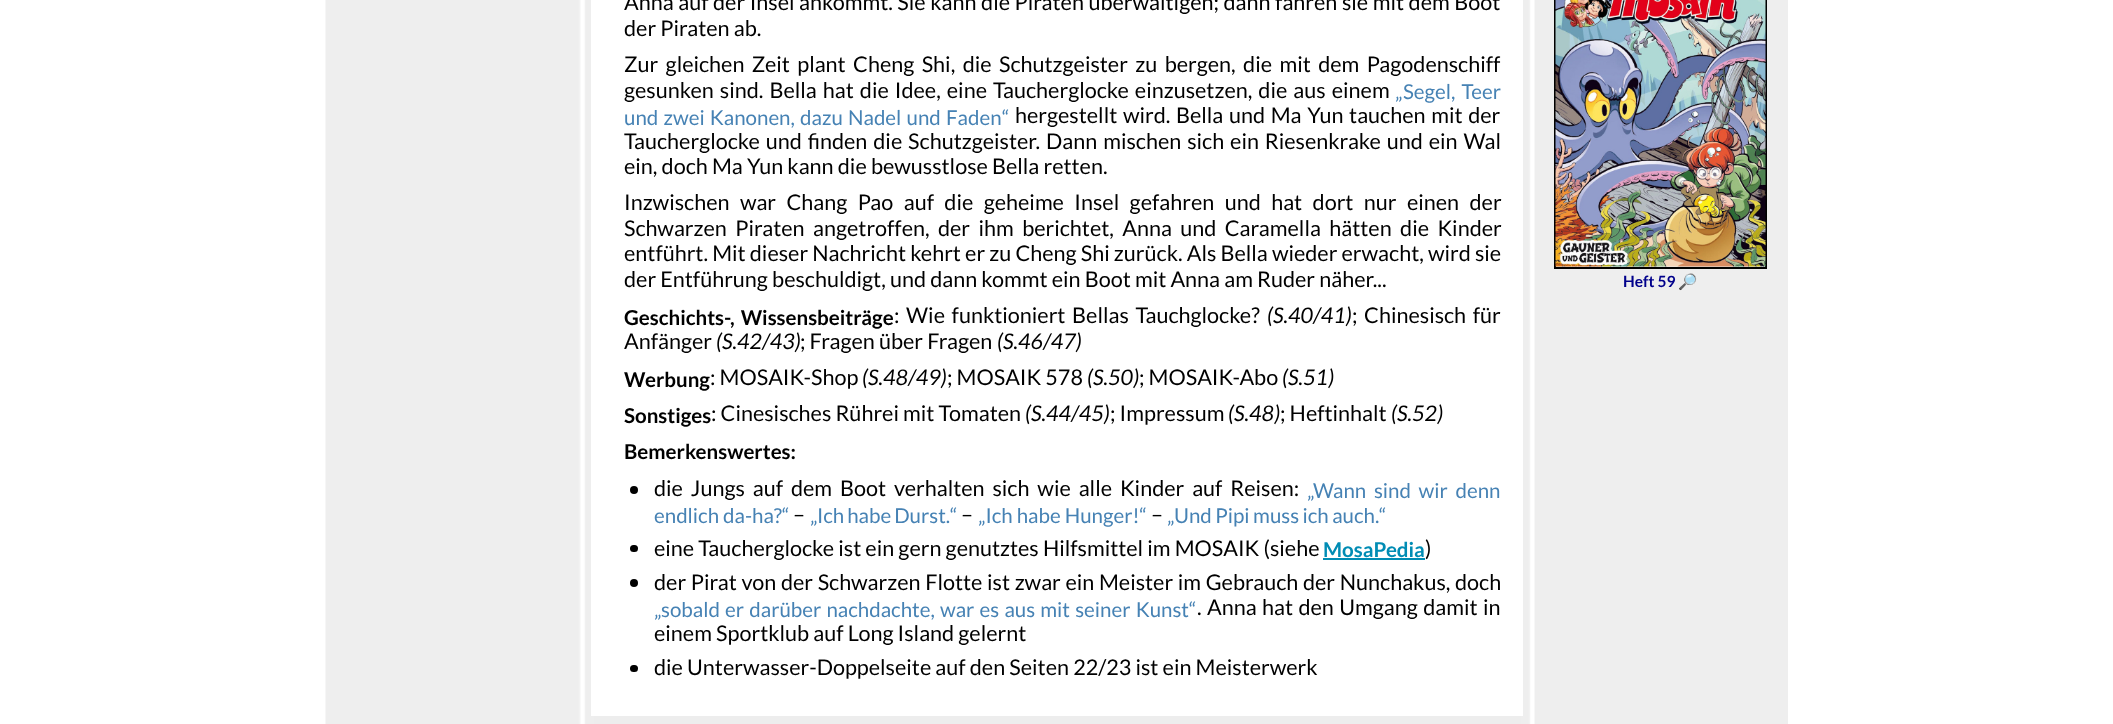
<!DOCTYPE html>
<meta charset="utf-8">
<style>body { margin: 0 } canvas { display: block }</style>
<canvas id="canvas" width="2113" height="724"></canvas>
<img id="img1" src="images/1.png" hidden>
<img id="img2" src="images/2.png" hidden>
<script>
window.onload = function () {
    const canvas = document.getElementById('canvas');
    const context = canvas.getContext('2d');
    context.miterLimit = 4;
    context.fontKerning = 'normal';

    context.fillStyle = 'rgb(255, 255, 255)';
    context.fillRect(0, 0, 2113, 724);
    context.fillStyle = 'rgb(238, 238, 238)';
    context.fillRect(1535, 0, 253, 724);
    context.drawImage(document.getElementById('img1'), 325, 0, 1210, 724);
    context.fillStyle = 'rgb(255, 255, 255)';
    context.fillRect(591, 0, 932, 716);
    context.fillStyle = 'rgb(0, 0, 0)';
    context.beginPath();
    context.arc(634, 490, 4, 0, 2 * Math.PI);
    context.fill();
    context.beginPath();
    context.roundRect(630, 545, 8, 7, 3.5);
    context.fill();
    context.fillStyle = 'rgb(0, 140, 180)';
    context.fillRect(1323, 558, 102, 2);
    context.fillStyle = 'rgb(0, 0, 0)';
    context.beginPath();
    context.arc(634, 583, 4, 0, 2 * Math.PI);
    context.fill();
    context.beginPath();
    context.roundRect(630, 665, 8, 7, 3.5);
    context.fill();
    context.strokeStyle = 'rgb(0, 0, 0)';
    context.lineWidth = 2;
    context.strokeRect(1555, -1, 211, 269);
    context.drawImage(document.getElementById('img2'), 1555, 0, 211, 267);
    context.wordSpacing = '0.4px';
    context.font = '21.6px Lato';
    context.fillText('Anna auf der Insel ankommt. Sie kann die Piraten überwältigen; dann fahren sie mit dem Boot', 624, 10);
    context.wordSpacing = '0px';
    context.fillText('der Piraten ab.', 624, 36);
    context.wordSpacing = '3.25px';
    context.fillText('Zur gleichen Zeit plant Cheng Shi, die Schutzgeister zu bergen, die mit dem Pagodenschiff', 624, 72);
    context.wordSpacing = '1.9px';
    context.fillText('gesunken sind. Bella hat die Idee, eine Taucherglocke einzusetzen, die aus einem', 624, 98);
    context.wordSpacing = '0px';
    context.font = '20.5px Lato';
    context.fillStyle = 'rgb(70, 130, 180)';
    context.fillText('„', 1395, 99);
    context.wordSpacing = '2px';
    context.fillText('Segel, Teer', 1403, 99);
    context.wordSpacing = '1.25px';
    context.fillText('und zwei Kanonen, dazu Nadel und Faden', 624, 125);
    context.wordSpacing = '0px';
    context.fillText('“', 1002, 125);
    context.wordSpacing = '1.5px';
    context.font = '21.6px Lato';
    context.fillStyle = 'rgb(0, 0, 0)';
    context.fillText('hergestellt wird. Bella und Ma Yun tauchen mit der', 1015, 123);
    context.wordSpacing = '1.75px';
    context.fillText('Taucherglocke und finden die Schutzgeister. Dann mischen sich ein Riesenkrake und ein Wal', 624, 149);
    context.wordSpacing = '0px';
    context.fillText('ein, doch Ma Yun kann die bewusstlose Bella retten.', 624, 174);
    context.wordSpacing = '6.25px';
    context.fillText('Inzwischen war Chang Pao auf die geheime Insel gefahren und hat dort nur einen der', 624, 210);
    context.wordSpacing = '4.25px';
    context.fillText('Schwarzen Piraten angetroffen, der ihm berichtet, Anna und Caramella hätten die Kinder', 624, 236);
    context.wordSpacing = '0px';
    context.fillText('entführt. Mit dieser Nachricht kehrt er zu Cheng Shi zurück. Als Bella wieder erwacht, wird sie', 624, 261);
    context.fillText('der Entführung beschuldigt, und dann kommt ein Boot mit Anna am Ruder näher...', 624, 287);
    context.wordSpacing = '2px';
    context.font = 'bold 20.5px Lato';
    context.fillText('Geschichts-, Wissensbeiträge', 624, 325);
    context.wordSpacing = '2.5px';
    context.font = '21.6px Lato';
    context.fillText(': Wie funktioniert Bellas Tauchglocke?', 894, 323);
    context.wordSpacing = '0px';
    context.font = 'italic 21.6px Lato';
    context.fillText('(S.40/41)', 1267, 323);
    context.wordSpacing = '2.5px';
    context.font = '21.6px Lato';
    context.fillText('; Chinesisch für', 1352, 323);
    context.wordSpacing = '0px';
    context.fillText('Anfänger', 624, 349);
    context.font = 'italic 21.6px Lato';
    context.fillText('(S.42/43)', 716, 349);
    context.font = '21.6px Lato';
    context.fillText('; Fragen über Fragen', 800, 349);
    context.font = 'italic 21.6px Lato';
    context.fillText('(S.46/47)', 997, 349);
    context.font = 'bold 20.5px Lato';
    context.fillText('Werbung', 624, 387);
    context.font = '21.6px Lato';
    context.fillText(': MOSAIK-Shop', 710, 385);
    context.font = 'italic 21.6px Lato';
    context.fillText('(S.48/49)', 862, 385);
    context.font = '21.6px Lato';
    context.fillText('; MOSAIK 578', 947, 385);
    context.font = 'italic 21.6px Lato';
    context.fillText('(S.50)', 1087, 385);
    context.font = '21.6px Lato';
    context.fillText('; MOSAIK-Abo', 1139, 385);
    context.font = 'italic 21.6px Lato';
    context.fillText('(S.51)', 1282, 385);
    context.font = 'bold 20.5px Lato';
    context.fillText('Sonstiges', 624, 423);
    context.font = '21.6px Lato';
    context.fillText(': Cinesisches Rührei mit Tomaten', 711, 421);
    context.font = 'italic 21.6px Lato';
    context.fillText('(S.44/45)', 1025, 421);
    context.font = '21.6px Lato';
    context.fillText('; Impressum', 1110, 421);
    context.font = 'italic 21.6px Lato';
    context.fillText('(S.48)', 1228, 421);
    context.font = '21.6px Lato';
    context.fillText('; Heftinhalt', 1280, 421);
    context.font = 'italic 21.6px Lato';
    context.fillText('(S.52)', 1391, 421);
    context.font = 'bold 20.5px Lato';
    context.fillText('Bemerkenswertes:', 624, 459);
    context.wordSpacing = '3.75px';
    context.font = '21.6px Lato';
    context.fillText('die Jungs auf dem Boot verhalten sich wie alle Kinder auf Reisen:', 654, 496);
    context.wordSpacing = '0px';
    context.font = '20.5px Lato';
    context.fillStyle = 'rgb(70, 130, 180)';
    context.fillText('„', 1307, 498);
    context.wordSpacing = '3.75px';
    context.fillText('Wann sind wir denn', 1313, 498);
    context.wordSpacing = '0px';
    context.fillText('endlich da-ha?“', 654, 523);
    context.wordSpacing = '-1px';
    context.fillText('Ich habe Durst.', 817, 523);
    context.wordSpacing = '0px';
    context.fillText('“', 950, 523);
    context.fillText('„Ich habe Hunger!“', 978, 523);
    context.wordSpacing = '-0.5px';
    context.fillText('Und Pipi muss ich auch.', 1174, 523);
    context.wordSpacing = '0px';
    context.fillText('“', 1379, 523);
    context.font = '21.6px Lato';
    context.fillStyle = 'rgb(0, 0, 0)';
    context.fillText('–', 793, 522);
    context.fillText('–', 961, 522);
    context.fillText('–', 1151, 522);
    context.font = '20.5px Lato';
    context.fillStyle = 'rgb(70, 130, 180)';
    context.fillText('„', 810, 523);
    context.fillText('„', 1167, 523);
    context.font = '21.6px Lato';
    context.fillStyle = 'rgb(0, 0, 0)';
    context.fillText('eine Taucherglocke ist ein gern genutztes Hilfsmittel im MOSAIK (siehe', 654, 556);
    context.font = 'bold 20.5px Lato';
    context.fillStyle = 'rgb(0, 140, 180)';
    context.fillText('MosaPedia', 1323, 557);
    context.font = '21.6px Lato';
    context.fillStyle = 'rgb(0, 0, 0)';
    context.fillText(')', 1425, 556);
    context.wordSpacing = '0.5px';
    context.fillText('der Pirat von der Schwarzen Flotte ist zwar ein Meister im Gebrauch der Nunchakus, doch', 654, 590);
    context.wordSpacing = '1.25px';
    context.font = '20.5px Lato';
    context.fillStyle = 'rgb(70, 130, 180)';
    context.fillText('sobald er darüber nachdachte, war es aus mit seiner Kunst', 661, 617);
    context.wordSpacing = '0px';
    context.fillText('“', 1189, 617);
    context.wordSpacing = '1.25px';
    context.font = '21.6px Lato';
    context.fillStyle = 'rgb(0, 0, 0)';
    context.fillText('. Anna hat den Umgang damit in', 1197, 615);
    context.wordSpacing = '0px';
    context.font = '20.5px Lato';
    context.fillStyle = 'rgb(70, 130, 180)';
    context.fillText('„', 654, 617);
    context.font = '21.6px Lato';
    context.fillStyle = 'rgb(0, 0, 0)';
    context.fillText('einem Sportklub auf Long Island gelernt', 654, 641);
    context.fillText('die Unterwasser-Doppelseite auf den Seiten 22/23 ist ein Meisterwerk', 654, 675);
    context.font = 'bold 15.5px Lato';
    context.fillStyle = 'rgb(0, 0, 139)';
    context.fillText('Heft 59', 1623, 287);
    context.font = 'bold 15.5px Noto Color Emoji';
    context.fillText('🔎', 1678, 287);
};
</script>
